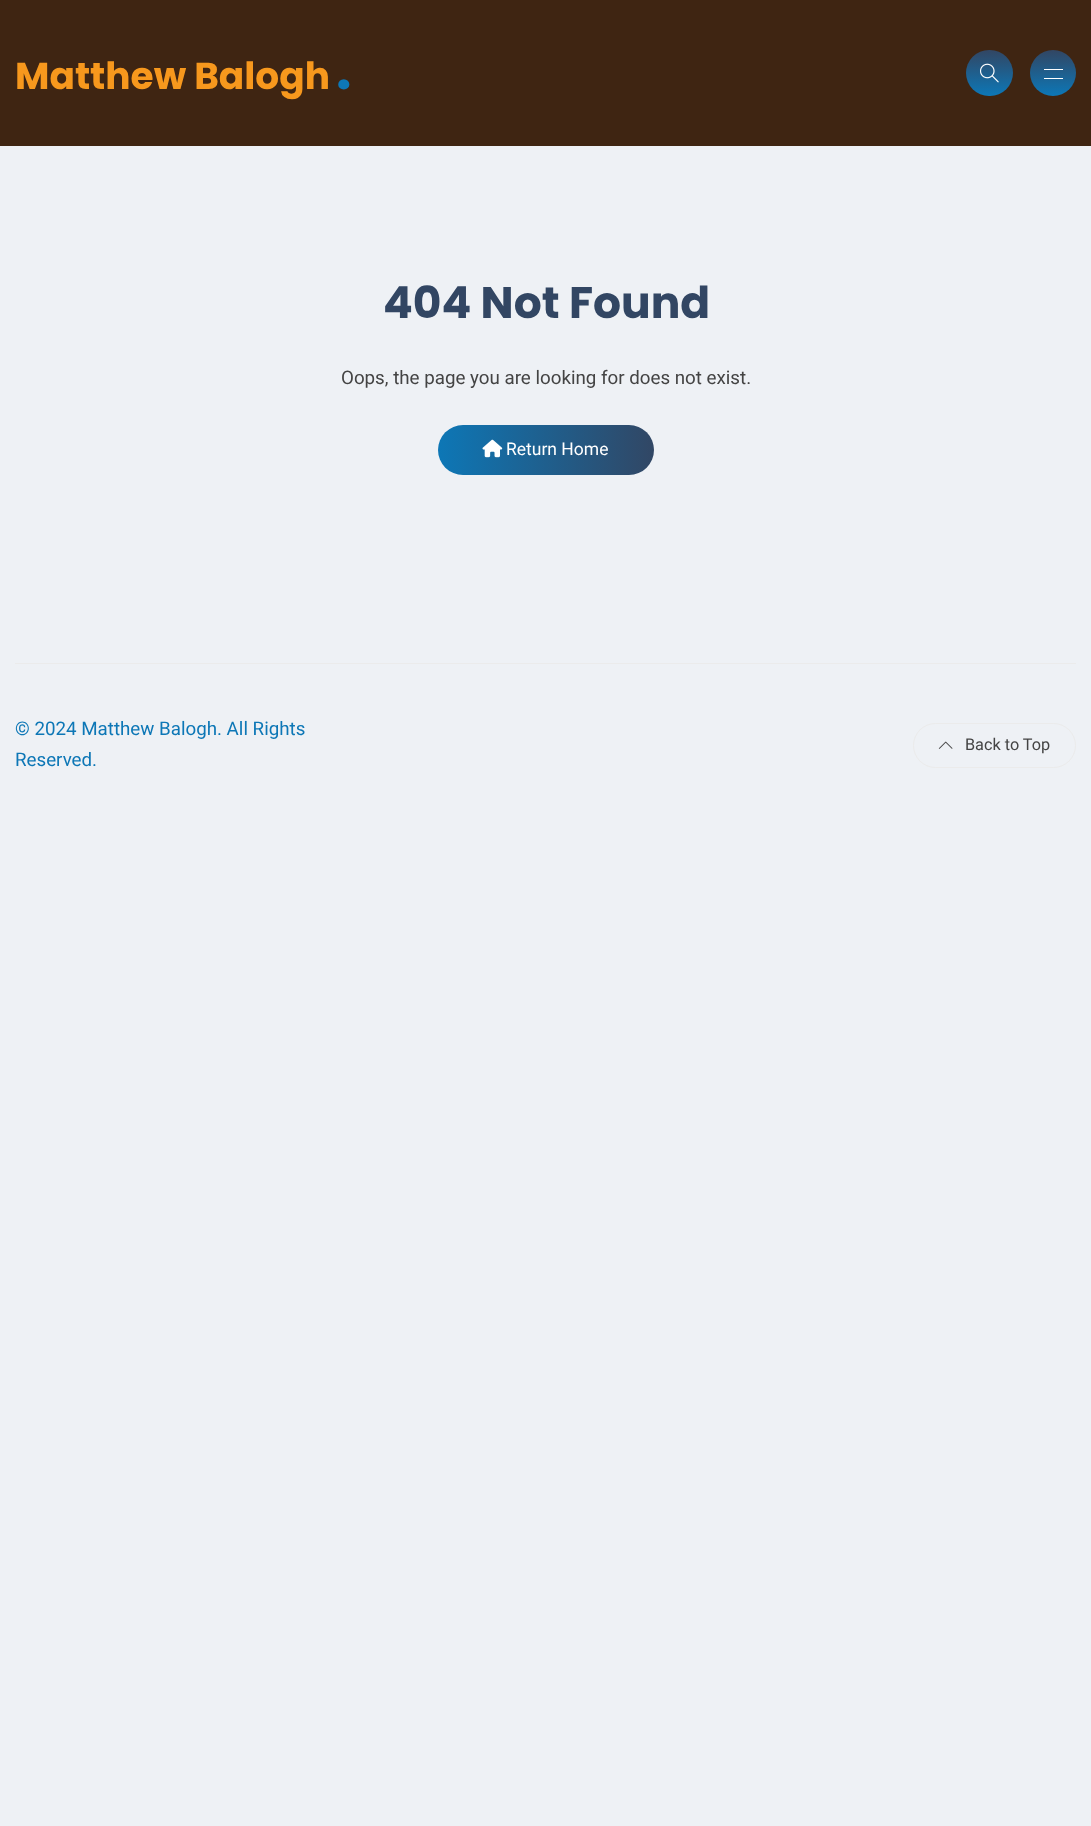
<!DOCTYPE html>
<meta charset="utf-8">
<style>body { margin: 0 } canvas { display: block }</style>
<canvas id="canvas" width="1091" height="1826"></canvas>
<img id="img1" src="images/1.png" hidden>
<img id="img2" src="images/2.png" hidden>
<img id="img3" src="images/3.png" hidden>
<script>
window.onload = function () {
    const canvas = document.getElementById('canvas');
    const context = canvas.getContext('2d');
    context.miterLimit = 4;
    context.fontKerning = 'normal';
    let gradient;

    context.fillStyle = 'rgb(238, 241, 245)';
    context.fillRect(0, 0, 1091, 1826);
    context.fillStyle = 'rgb(63, 37, 18)';
    context.fillRect(0, 0, 1091, 146);
    gradient = context.createLinearGradient(989, 143, 989, 50);
    gradient.addColorStop(0, 'rgb(50, 70, 99)');
    gradient.addColorStop(0.51, 'rgb(13, 119, 182)');
    gradient.addColorStop(1, 'rgb(50, 70, 99)');
    context.fillStyle = gradient;
    context.beginPath();
    context.roundRect(966, 50, 47, 46, 23);
    context.fill();
    context.drawImage(document.getElementById('img1'), 980, 63, 19, 20);
    gradient = context.createLinearGradient(1053, 143, 1053, 50);
    gradient.addColorStop(0, 'rgb(50, 70, 99)');
    gradient.addColorStop(0.51, 'rgb(13, 119, 182)');
    gradient.addColorStop(1, 'rgb(50, 70, 99)');
    context.fillStyle = gradient;
    context.beginPath();
    context.arc(1053, 73, 23, 0, 2 * Math.PI);
    context.fill();
    context.fillStyle = 'rgb(255, 255, 255)';
    context.fillRect(1044, 69, 19, 1);
    context.fillRect(1044, 78, 19, 1);
    gradient = context.createLinearGradient(438, 450, 870, 450);
    gradient.addColorStop(0, 'rgb(13, 119, 182)');
    gradient.addColorStop(0.51, 'rgb(50, 70, 99)');
    gradient.addColorStop(1, 'rgb(13, 119, 182)');
    context.fillStyle = gradient;
    context.beginPath();
    context.roundRect(438, 425, 216, 50, 25);
    context.fill();
    context.drawImage(document.getElementById('img2'), 482, 439, 21, 19);
    context.fillStyle = 'rgb(235, 235, 235)';
    context.fillRect(15, 663, 1061, 1);
    context.beginPath();
    context.roundRect(913.5, 723.5, 162, 44, 22);
    context.strokeStyle = 'rgb(235, 235, 235)';
    context.stroke();
    context.drawImage(document.getElementById('img3'), 938, 741, 15, 8);
    context.font = 'bold 37.5px Poppins';
    context.fillStyle = 'rgb(247, 152, 29)';
    context.fillText('Matthew Balogh', 15, 89);
    context.font = 'bold 55px Poppins';
    context.fillStyle = 'rgb(13, 119, 182)';
    context.fillText('.', 336, 89);
    context.font = 'bold 44px Poppins';
    context.fillStyle = 'rgb(50, 70, 99)';
    context.fillText('404 Not Found', 383, 318);
    context.font = '18.75px Roboto';
    context.fillStyle = 'rgb(68, 68, 68)';
    context.fillText('Oops, the page you are looking for does not exist.', 341, 384);
    context.font = '17.5px Roboto';
    context.fillStyle = 'rgb(255, 255, 255)';
    context.fillText('Return Home', 506, 455);
    context.font = '18.75px Roboto';
    context.fillStyle = 'rgb(13, 119, 182)';
    context.fillText('© 2024 Matthew Balogh. All Rights', 15, 735);
    context.fillText('Reserved.', 15, 766);
    context.font = '16.25px Roboto';
    context.fillStyle = 'rgb(68, 68, 68)';
    context.fillText('Back to Top', 965, 750);
};
</script>
